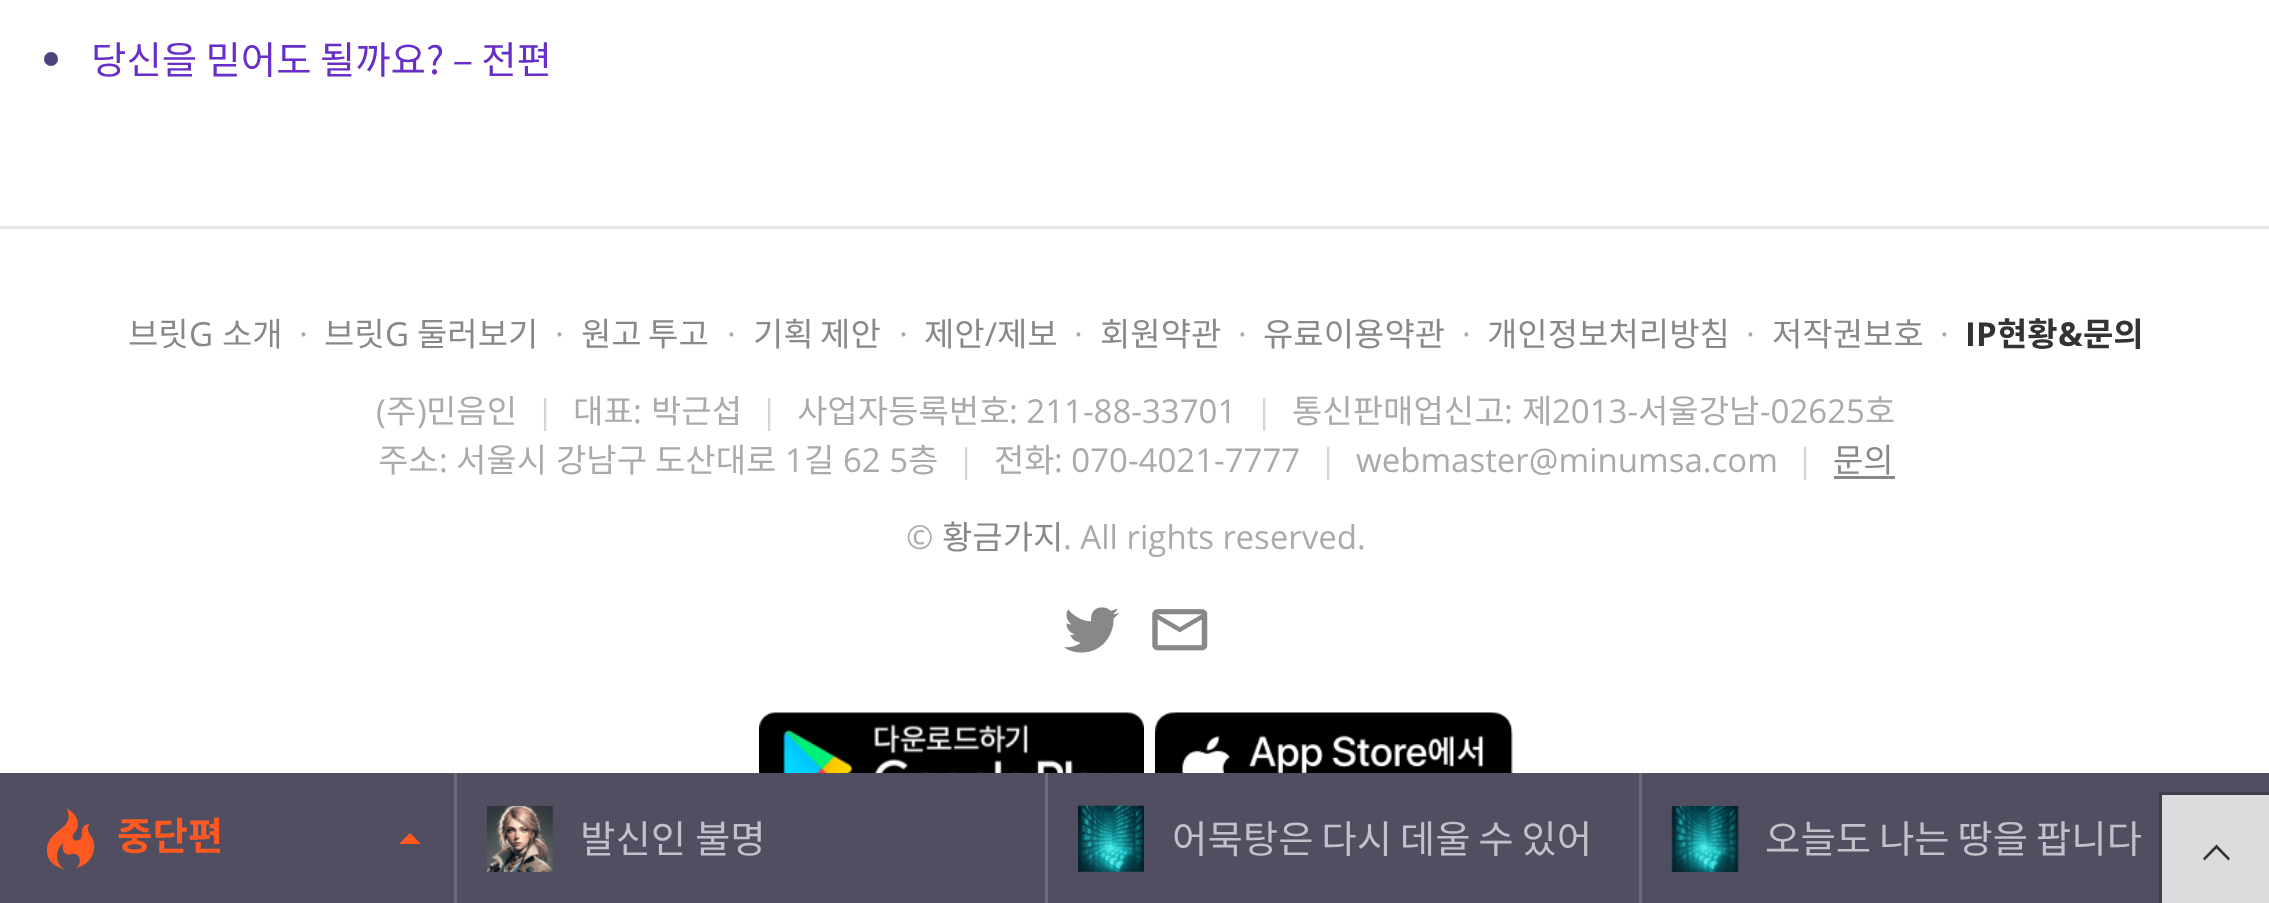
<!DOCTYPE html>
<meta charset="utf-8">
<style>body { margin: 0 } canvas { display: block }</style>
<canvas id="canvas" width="2269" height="903"></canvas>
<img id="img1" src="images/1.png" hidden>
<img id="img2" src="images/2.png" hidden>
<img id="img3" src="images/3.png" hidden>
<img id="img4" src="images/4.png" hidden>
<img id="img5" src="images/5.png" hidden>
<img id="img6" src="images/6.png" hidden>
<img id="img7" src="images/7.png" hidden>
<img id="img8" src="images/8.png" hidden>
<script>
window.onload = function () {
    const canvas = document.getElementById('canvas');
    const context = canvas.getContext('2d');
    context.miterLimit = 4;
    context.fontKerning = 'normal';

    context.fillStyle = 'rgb(255, 255, 255)';
    context.fillRect(0, 0, 2269, 903);
    context.fillStyle = 'rgb(78, 68, 123)';
    context.beginPath();
    context.arc(51, 59, 7, 0, 2 * Math.PI);
    context.fill();
    context.fillStyle = 'rgb(230, 230, 230)';
    context.fillRect(0, 226, 2269, 3);
    context.fillStyle = 'rgb(136, 136, 136)';
    context.fillRect(1834, 476, 61, 3);
    context.drawImage(document.getElementById('img1'), 1064, 607, 55, 46);
    context.drawImage(document.getElementById('img2'), 1152, 609, 56, 42);
    context.drawImage(document.getElementById('img3'), 759, 712, 385, 61);
    context.drawImage(document.getElementById('img4'), 1155, 712, 358, 61);
    context.fillStyle = 'rgb(82, 78, 97)';
    context.fillRect(0, 773, 2269, 130);
    context.drawImage(document.getElementById('img5'), 46, 808, 49, 61);
    context.fillStyle = 'rgb(255, 89, 34)';
    context.beginPath();
    context.moveTo(421, 844);
    context.lineTo(399, 844);
    context.lineTo(410, 833);
    context.closePath();
    context.fill();
    context.fillStyle = 'rgb(108, 105, 121)';
    context.fillRect(454, 773, 3, 130);
    context.drawImage(document.getElementById('img6'), 487, 806, 66, 66);
    context.fillRect(1045, 773, 3, 130);
    context.drawImage(document.getElementById('img7'), 1078, 805, 66, 67);
    context.fillRect(1639, 773, 3, 130);
    context.drawImage(document.getElementById('img8'), 1671, 806, 68, 66);
    context.fillStyle = 'rgb(220, 220, 223)';
    context.fillRect(2162, 795, 107, 108);
    context.fillStyle = 'rgb(51, 51, 51)';
    context.beginPath();
    context.moveTo(2204.5, 860.5);
    context.lineTo(2216.5, 848.5);
    context.lineTo(2228.5, 860.5);
    context.lineTo(2230, 858.5);
    context.lineTo(2216.5, 844.5);
    context.lineTo(2203, 858.5);
    context.closePath();
    context.fill();
    context.strokeStyle = 'rgb(66, 62, 78)';
    context.lineWidth = 3;
    context.strokeRect(2160.5, 793.5, 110, 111);
    context.wordSpacing = '-0.5px';
    context.font = '38.5px Noto Sans KR';
    context.fillStyle = 'rgb(103, 46, 200)';
    context.fillText('당신을 믿어도 될까요? – 전편', 91, 74);
    context.wordSpacing = '0px';
    context.font = '33px Noto Sans KR';
    context.fillStyle = 'rgb(136, 136, 136)';
    context.fillText('브릿', 128, 346);
    context.font = '33px Open Sans';
    context.fillText('G', 189, 346);
    context.font = '33px Noto Sans KR';
    context.fillText('소개', 222, 346);
    context.font = '33px Open Sans';
    context.fillStyle = 'rgb(170, 170, 170)';
    context.fillText('·', 299, 346);
    context.font = '33px Noto Sans KR';
    context.fillStyle = 'rgb(136, 136, 136)';
    context.fillText('브릿', 324, 346);
    context.font = '33px Open Sans';
    context.fillText('G', 385, 346);
    context.font = '33px Noto Sans KR';
    context.fillText('둘러보기', 417, 346);
    context.font = '33px Open Sans';
    context.fillStyle = 'rgb(170, 170, 170)';
    context.fillText('·', 555, 346);
    context.wordSpacing = '-1px';
    context.font = '33px Noto Sans KR';
    context.fillStyle = 'rgb(136, 136, 136)';
    context.fillText('원고 투고', 581, 346);
    context.wordSpacing = '0px';
    context.font = '33px Open Sans';
    context.fillStyle = 'rgb(170, 170, 170)';
    context.fillText('·', 727, 346);
    context.wordSpacing = '-1px';
    context.font = '33px Noto Sans KR';
    context.fillStyle = 'rgb(136, 136, 136)';
    context.fillText('기획 제안', 753, 346);
    context.wordSpacing = '0px';
    context.font = '33px Open Sans';
    context.fillStyle = 'rgb(170, 170, 170)';
    context.fillText('·', 899, 346);
    context.font = '33px Noto Sans KR';
    context.fillStyle = 'rgb(136, 136, 136)';
    context.fillText('제안', 924, 346);
    context.font = '33px Open Sans';
    context.fillText('/', 985, 346);
    context.font = '33px Noto Sans KR';
    context.fillText('제보', 997, 346);
    context.font = '33px Open Sans';
    context.fillStyle = 'rgb(170, 170, 170)';
    context.fillText('·', 1074, 346);
    context.font = '33px Noto Sans KR';
    context.fillStyle = 'rgb(136, 136, 136)';
    context.fillText('회원약관', 1100, 346);
    context.font = '33px Open Sans';
    context.fillStyle = 'rgb(170, 170, 170)';
    context.fillText('·', 1238, 346);
    context.font = '33px Noto Sans KR';
    context.fillStyle = 'rgb(136, 136, 136)';
    context.fillText('유료이용약관', 1263, 346);
    context.font = '33px Open Sans';
    context.fillStyle = 'rgb(170, 170, 170)';
    context.fillText('·', 1462, 346);
    context.font = '33px Noto Sans KR';
    context.fillStyle = 'rgb(136, 136, 136)';
    context.fillText('개인정보처리방침', 1487, 346);
    context.font = '33px Open Sans';
    context.fillStyle = 'rgb(170, 170, 170)';
    context.fillText('·', 1746, 346);
    context.font = '33px Noto Sans KR';
    context.fillStyle = 'rgb(136, 136, 136)';
    context.fillText('저작권보호', 1772, 346);
    context.font = '33px Open Sans';
    context.fillStyle = 'rgb(170, 170, 170)';
    context.fillText('·', 1940, 346);
    context.font = 'bold 33px Open Sans';
    context.fillStyle = 'rgb(51, 51, 51)';
    context.fillText('IP', 1965, 346);
    context.font = 'bold 33px Noto Sans KR';
    context.fillText('현황', 1997, 346);
    context.font = 'bold 33px Open Sans';
    context.fillText('&', 2058, 346);
    context.font = 'bold 33px Noto Sans KR';
    context.fillText('문의', 2083, 346);
    context.font = '33px Open Sans';
    context.fillStyle = 'rgb(170, 170, 170)';
    context.fillText('(', 376, 423);
    context.font = '33px Noto Sans KR';
    context.fillText('주', 386, 423);
    context.font = '33px Open Sans';
    context.fillText(')', 417, 423);
    context.font = '33px Noto Sans KR';
    context.fillText('민음인', 426, 423);
    context.font = '33px Open Sans';
    context.fillStyle = 'rgb(213, 213, 213)';
    context.fillText('|', 536, 423);
    context.font = '33px Noto Sans KR';
    context.fillStyle = 'rgb(170, 170, 170)';
    context.fillText('대표', 573, 423);
    context.font = '33px Open Sans';
    context.fillText(':', 633, 423);
    context.font = '33px Noto Sans KR';
    context.fillText('박근섭', 651, 423);
    context.font = '33px Open Sans';
    context.fillStyle = 'rgb(213, 213, 213)';
    context.fillText('|', 760, 423);
    context.font = '33px Noto Sans KR';
    context.fillStyle = 'rgb(170, 170, 170)';
    context.fillText('사업자등록번호', 797, 423);
    context.font = '33px Open Sans';
    context.fillText(': 211-88-33701', 1009, 423);
    context.fillStyle = 'rgb(213, 213, 213)';
    context.fillText('|', 1255, 423);
    context.font = '33px Noto Sans KR';
    context.fillStyle = 'rgb(170, 170, 170)';
    context.fillText('통신판매업신고', 1292, 423);
    context.font = '33px Open Sans';
    context.fillText(':', 1504, 423);
    context.font = '33px Noto Sans KR';
    context.fillText('제', 1522, 423);
    context.font = '33px Open Sans';
    context.fillText('2013-', 1552, 423);
    context.font = '33px Noto Sans KR';
    context.fillText('서울강남', 1638, 423);
    context.font = '33px Open Sans';
    context.fillText('-02625', 1760, 423);
    context.font = '33px Noto Sans KR';
    context.fillText('호', 1865, 423);
    context.fillText('주소', 378, 472);
    context.font = '33px Open Sans';
    context.fillText(':', 439, 472);
    context.font = '33px Noto Sans KR';
    context.fillText('서울시', 456, 472);
    context.fillText('강남구', 556, 472);
    context.fillText('도산대로', 655, 472);
    context.font = '33px Open Sans';
    context.fillText('1', 785, 472);
    context.font = '33px Noto Sans KR';
    context.fillText('길', 804, 472);
    context.font = '33px Open Sans';
    context.fillText('62 5', 843, 472);
    context.font = '33px Noto Sans KR';
    context.fillText('층', 908, 472);
    context.font = '33px Open Sans';
    context.fillStyle = 'rgb(213, 213, 213)';
    context.fillText('|', 957, 472);
    context.font = '33px Noto Sans KR';
    context.fillStyle = 'rgb(170, 170, 170)';
    context.fillText('전화', 994, 472);
    context.font = '33px Open Sans';
    context.fillText(': 070-4021-7777', 1054, 472);
    context.fillStyle = 'rgb(213, 213, 213)';
    context.fillText('|', 1319, 472);
    context.fillStyle = 'rgb(170, 170, 170)';
    context.fillText('webmaster@minumsa.com', 1356, 472);
    context.fillStyle = 'rgb(213, 213, 213)';
    context.fillText('|', 1796, 472);
    context.font = '33px Noto Sans KR';
    context.fillStyle = 'rgb(136, 136, 136)';
    context.fillText('문의', 1833, 472);
    context.font = '33px Open Sans';
    context.fillStyle = 'rgb(170, 170, 170)';
    context.fillText('©', 906, 549);
    context.font = '33px Noto Sans KR';
    context.fillStyle = 'rgb(136, 136, 136)';
    context.fillText('황금가지', 942, 549);
    context.font = '33px Open Sans';
    context.fillStyle = 'rgb(170, 170, 170)';
    context.fillText('. All rights reserved.', 1063, 549);
    context.font = 'bold 38.5px Noto Sans KR';
    context.fillStyle = 'rgb(255, 89, 34)';
    context.fillText('중단편', 117, 850);
    context.font = '38.5px Noto Sans KR';
    context.fillStyle = 'rgb(194, 192, 202)';
    context.fillText('발신인 불명', 580, 853);
    context.wordSpacing = '-1px';
    context.fillText('어묵탕은 다시 데울 수 있어', 1172, 853);
    context.fillText('오늘도 나는 땅을 팝니다', 1765, 853);
};
</script>
